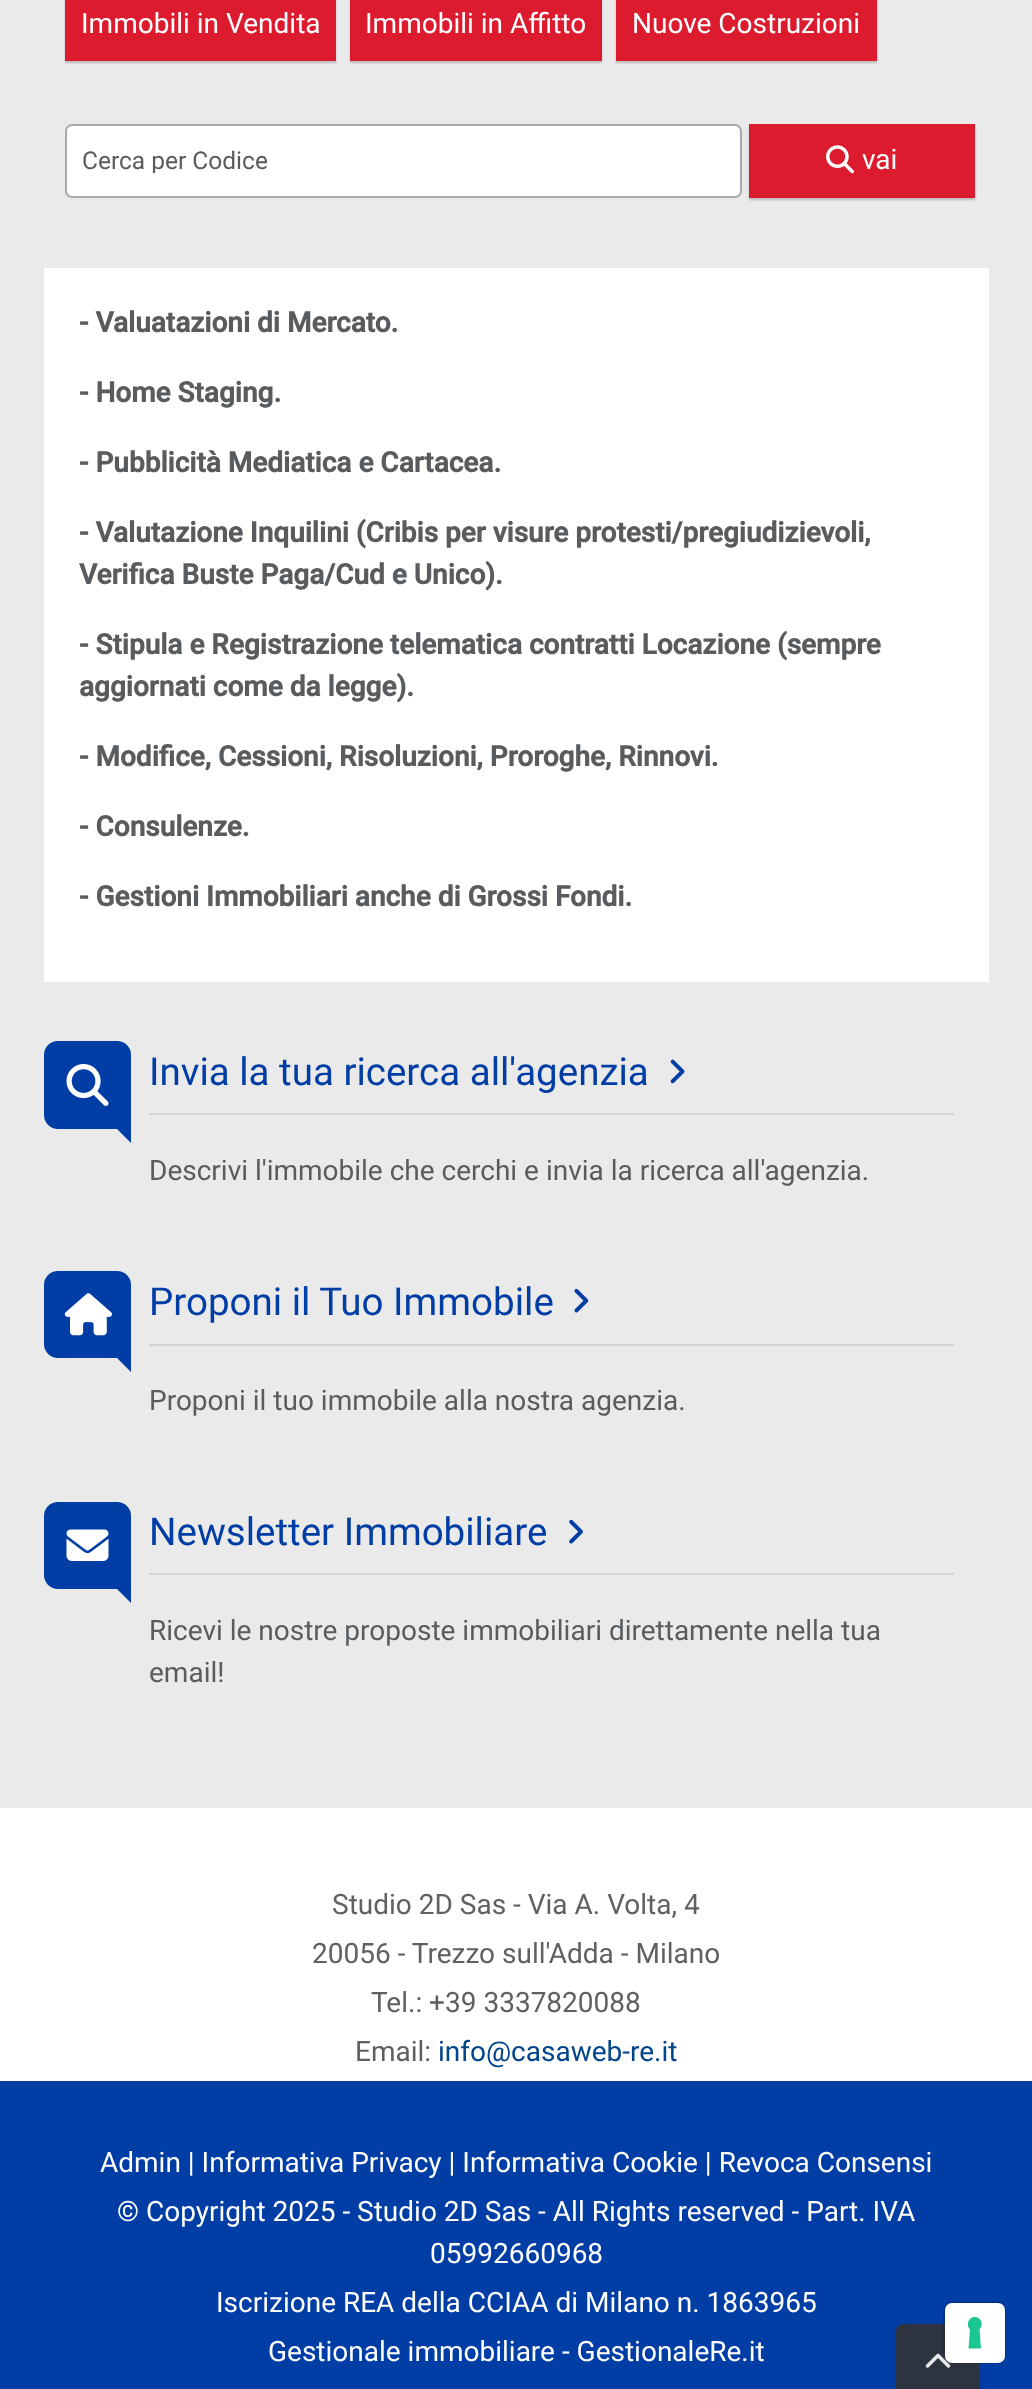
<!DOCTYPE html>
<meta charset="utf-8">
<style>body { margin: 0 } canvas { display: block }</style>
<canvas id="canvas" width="1032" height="2389"></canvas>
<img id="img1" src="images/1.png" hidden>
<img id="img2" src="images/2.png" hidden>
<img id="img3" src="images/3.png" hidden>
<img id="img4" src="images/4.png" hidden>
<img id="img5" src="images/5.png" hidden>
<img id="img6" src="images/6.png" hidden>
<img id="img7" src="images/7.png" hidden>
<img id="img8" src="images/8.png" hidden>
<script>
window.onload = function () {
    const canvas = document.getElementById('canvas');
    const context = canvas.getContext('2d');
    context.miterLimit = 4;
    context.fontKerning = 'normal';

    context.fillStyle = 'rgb(234, 234, 234)';
    context.fillRect(0, 0, 1032, 2389);
    context.fillStyle = 'rgba(0, 0, 0, 0.2)';
    context.filter = 'blur(1px)';
    context.beginPath();
    context.rect(65, -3, 271, 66);
    context.fill();
    context.filter = 'none';
    context.fillStyle = 'rgb(220, 28, 46)';
    context.fillRect(65, 0, 271, 61);
    context.fillStyle = 'rgba(0, 0, 0, 0.2)';
    context.filter = 'blur(1px)';
    context.beginPath();
    context.rect(350, -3, 252, 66);
    context.fill();
    context.filter = 'none';
    context.fillStyle = 'rgb(220, 28, 46)';
    context.fillRect(350, 0, 252, 61);
    context.fillStyle = 'rgba(0, 0, 0, 0.2)';
    context.filter = 'blur(1px)';
    context.beginPath();
    context.rect(616, -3, 261, 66);
    context.fill();
    context.filter = 'none';
    context.fillStyle = 'rgb(220, 28, 46)';
    context.fillRect(616, 0, 261, 61);
    context.fillStyle = 'rgb(255, 255, 255)';
    context.beginPath();
    context.roundRect(66, 125, 675, 72, 6);
    context.fill();
    context.strokeStyle = 'rgb(170, 170, 170)';
    context.lineWidth = 2;
    context.stroke();
    context.fillStyle = 'rgba(0, 0, 0, 0.2)';
    context.filter = 'blur(1px)';
    context.beginPath();
    context.rect(749, 126, 226, 74);
    context.fill();
    context.filter = 'none';
    context.fillStyle = 'rgb(220, 28, 46)';
    context.fillRect(749, 124, 226, 74);
    context.drawImage(document.getElementById('img1'), 826, 145, 28, 29);
    context.fillStyle = 'rgb(255, 255, 255)';
    context.fillRect(44, 268, 945, 714);
    context.fillStyle = 'rgb(0, 61, 165)';
    context.beginPath();
    context.roundRect(44, 1041, 87, 88, [14, 14, 0, 14]);
    context.fill();
    context.drawImage(document.getElementById('img2'), 66, 1064, 43, 42);
    context.beginPath();
    context.moveTo(131, 1129);
    context.lineTo(131, 1143);
    context.lineTo(117, 1129);
    context.closePath();
    context.fill();
    context.fillStyle = 'rgb(211, 211, 211)';
    context.fillRect(149, 1113, 805, 2);
    context.drawImage(document.getElementById('img3'), 670, 1059, 15, 25);
    context.fillStyle = 'rgb(0, 61, 165)';
    context.beginPath();
    context.roundRect(44, 1271, 87, 87, [14, 14, 0, 14]);
    context.fill();
    context.drawImage(document.getElementById('img4'), 64, 1293, 48, 43);
    context.beginPath();
    context.moveTo(131, 1358);
    context.lineTo(131, 1372);
    context.lineTo(117, 1358);
    context.closePath();
    context.fill();
    context.fillStyle = 'rgb(211, 211, 211)';
    context.fillRect(149, 1344, 805, 2);
    context.drawImage(document.getElementById('img5'), 574, 1288, 15, 25);
    context.fillStyle = 'rgb(0, 61, 165)';
    context.beginPath();
    context.roundRect(44, 1502, 87, 87, [14, 14, 0, 14]);
    context.fill();
    context.drawImage(document.getElementById('img6'), 66, 1529, 43, 32);
    context.beginPath();
    context.moveTo(131, 1589);
    context.lineTo(131, 1603);
    context.lineTo(117, 1589);
    context.closePath();
    context.fill();
    context.fillStyle = 'rgb(211, 211, 211)';
    context.fillRect(149, 1573, 805, 2);
    context.drawImage(document.getElementById('img7'), 569, 1519, 14, 25);
    context.fillStyle = 'rgb(255, 255, 255)';
    context.fillRect(0, 1808, 1032, 273);
    context.fillStyle = 'rgb(0, 61, 165)';
    context.fillRect(0, 2081, 1032, 308);
    context.fillStyle = 'rgb(46, 52, 63)';
    context.beginPath();
    context.moveTo(903, 2324);
    context.lineTo(973, 2324);
    context.bezierCurveTo(977, 2324, 980, 2327, 980, 2331);
    context.lineTo(980, 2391);
    context.lineTo(896, 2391);
    context.lineTo(896, 2331);
    context.bezierCurveTo(896, 2327, 899, 2324, 903, 2324);
    context.closePath();
    context.fill();
    context.drawImage(document.getElementById('img8'), 925, 2353, 26, 15);
    context.beginPath();
    context.roundRect(944, 2302, 61, 61, 8);
    context.strokeStyle = 'rgba(0, 0, 0, 0.15)';
    context.stroke();
    context.fillStyle = 'rgb(255, 255, 255)';
    context.beginPath();
    context.roundRect(945, 2303, 60, 60, 7);
    context.fill();
    context.fillStyle = 'rgb(28, 198, 145)';
    context.beginPath();
    context.moveTo(975, 2317);
    context.bezierCurveTo(981, 2317, 984, 2325, 979.5, 2329.5);
    context.lineTo(981, 2348.5);
    context.lineTo(968.5, 2348.5);
    context.lineTo(970, 2329.5);
    context.bezierCurveTo(965.5, 2325, 968.5, 2317, 975, 2317);
    context.closePath();
    context.fill('evenodd');
    context.font = '28px Roboto';
    context.fillStyle = 'rgb(255, 255, 255)';
    context.fillText('Immobili in Vendita', 81, 33);
    context.fillText('Immobili in Affitto', 365, 33);
    context.fillText('Nuove Costruzioni', 632, 33);
    context.save();
    context.beginPath();
    context.rect(82, 145, 643, 28);
    context.clip();
    context.font = '24.5px Roboto';
    context.fillStyle = 'rgb(89, 92, 95)';
    context.fillText('Cerca per Codice', 82, 169);
    context.restore();
    context.fillText('vai', 862, 169);
    context.font = 'bold 28px Roboto';
    context.fillStyle = 'rgb(89, 92, 95)';
    context.fillText('- Valuatazioni di Mercato.', 79, 332);
    context.fillText('- Home Staging.', 79, 402);
    context.fillText('- Pubblicità Mediatica e Cartacea.', 79, 472);
    context.fillText('- Valutazione Inquilini (Cribis per visure protesti/pregiudizievoli,', 79, 542);
    context.fillText('Verifica Buste Paga/Cud e Unico).', 79, 584);
    context.fillText('- Stipula e Registrazione telematica contratti Locazione (sempre', 79, 654);
    context.fillText('aggiornati come da legge).', 79, 696);
    context.fillText('- Modifice, Cessioni, Risoluzioni, Proroghe, Rinnovi.', 79, 766);
    context.fillText('- Consulenze.', 79, 836);
    context.fillText('- Gestioni Immobiliari anche di Grossi Fondi.', 79, 906);
    context.font = '38.5px Roboto';
    context.fillStyle = 'rgb(0, 61, 165)';
    context.fillText('Invia la tua ricerca all\'agenzia', 149, 1085);
    context.font = '28px Roboto';
    context.fillStyle = 'rgb(89, 92, 95)';
    context.fillText('Descrivi l\'immobile che cerchi e invia la ricerca all\'agenzia.', 149, 1180);
    context.font = '38.5px Roboto';
    context.fillStyle = 'rgb(0, 61, 165)';
    context.fillText('Proponi il Tuo Immobile', 149, 1315);
    context.font = '28px Roboto';
    context.fillStyle = 'rgb(89, 92, 95)';
    context.fillText('Proponi il tuo immobile alla nostra agenzia.', 149, 1410);
    context.font = '38.5px Roboto';
    context.fillStyle = 'rgb(0, 61, 165)';
    context.fillText('Newsletter Immobiliare', 149, 1545);
    context.font = '28px Roboto';
    context.fillStyle = 'rgb(89, 92, 95)';
    context.fillText('Ricevi le nostre proposte immobiliari direttamente nella tua', 149, 1640);
    context.fillText('email!', 149, 1682);
    context.fillStyle = 'rgb(95, 96, 98)';
    context.fillText('Studio 2D Sas - Via A. Volta, 4', 332, 1914);
    context.fillText('20056 - Trezzo sull\'Adda - Milano', 312, 1963);
    context.fillText('Tel.: +39 3337820088', 371, 2012);
    context.fillText('Email:', 355, 2061);
    context.fillStyle = 'rgb(0, 69, 139)';
    context.fillText('info@casaweb-re.it', 438, 2061);
    context.fillStyle = 'rgb(255, 255, 255)';
    context.fillText('Admin | Informativa Privacy | Informativa Cookie | Revoca Consensi', 100, 2172);
    context.fillText('© Copyright 2025 - Studio 2D Sas - All Rights reserved - Part. IVA', 117, 2221);
    context.fillText('05992660968', 430, 2263);
    context.fillText('Iscrizione REA della CCIAA di Milano n. 1863965', 216, 2312);
    context.fillText('Gestionale immobiliare - GestionaleRe.it', 268, 2361);
};
</script>
